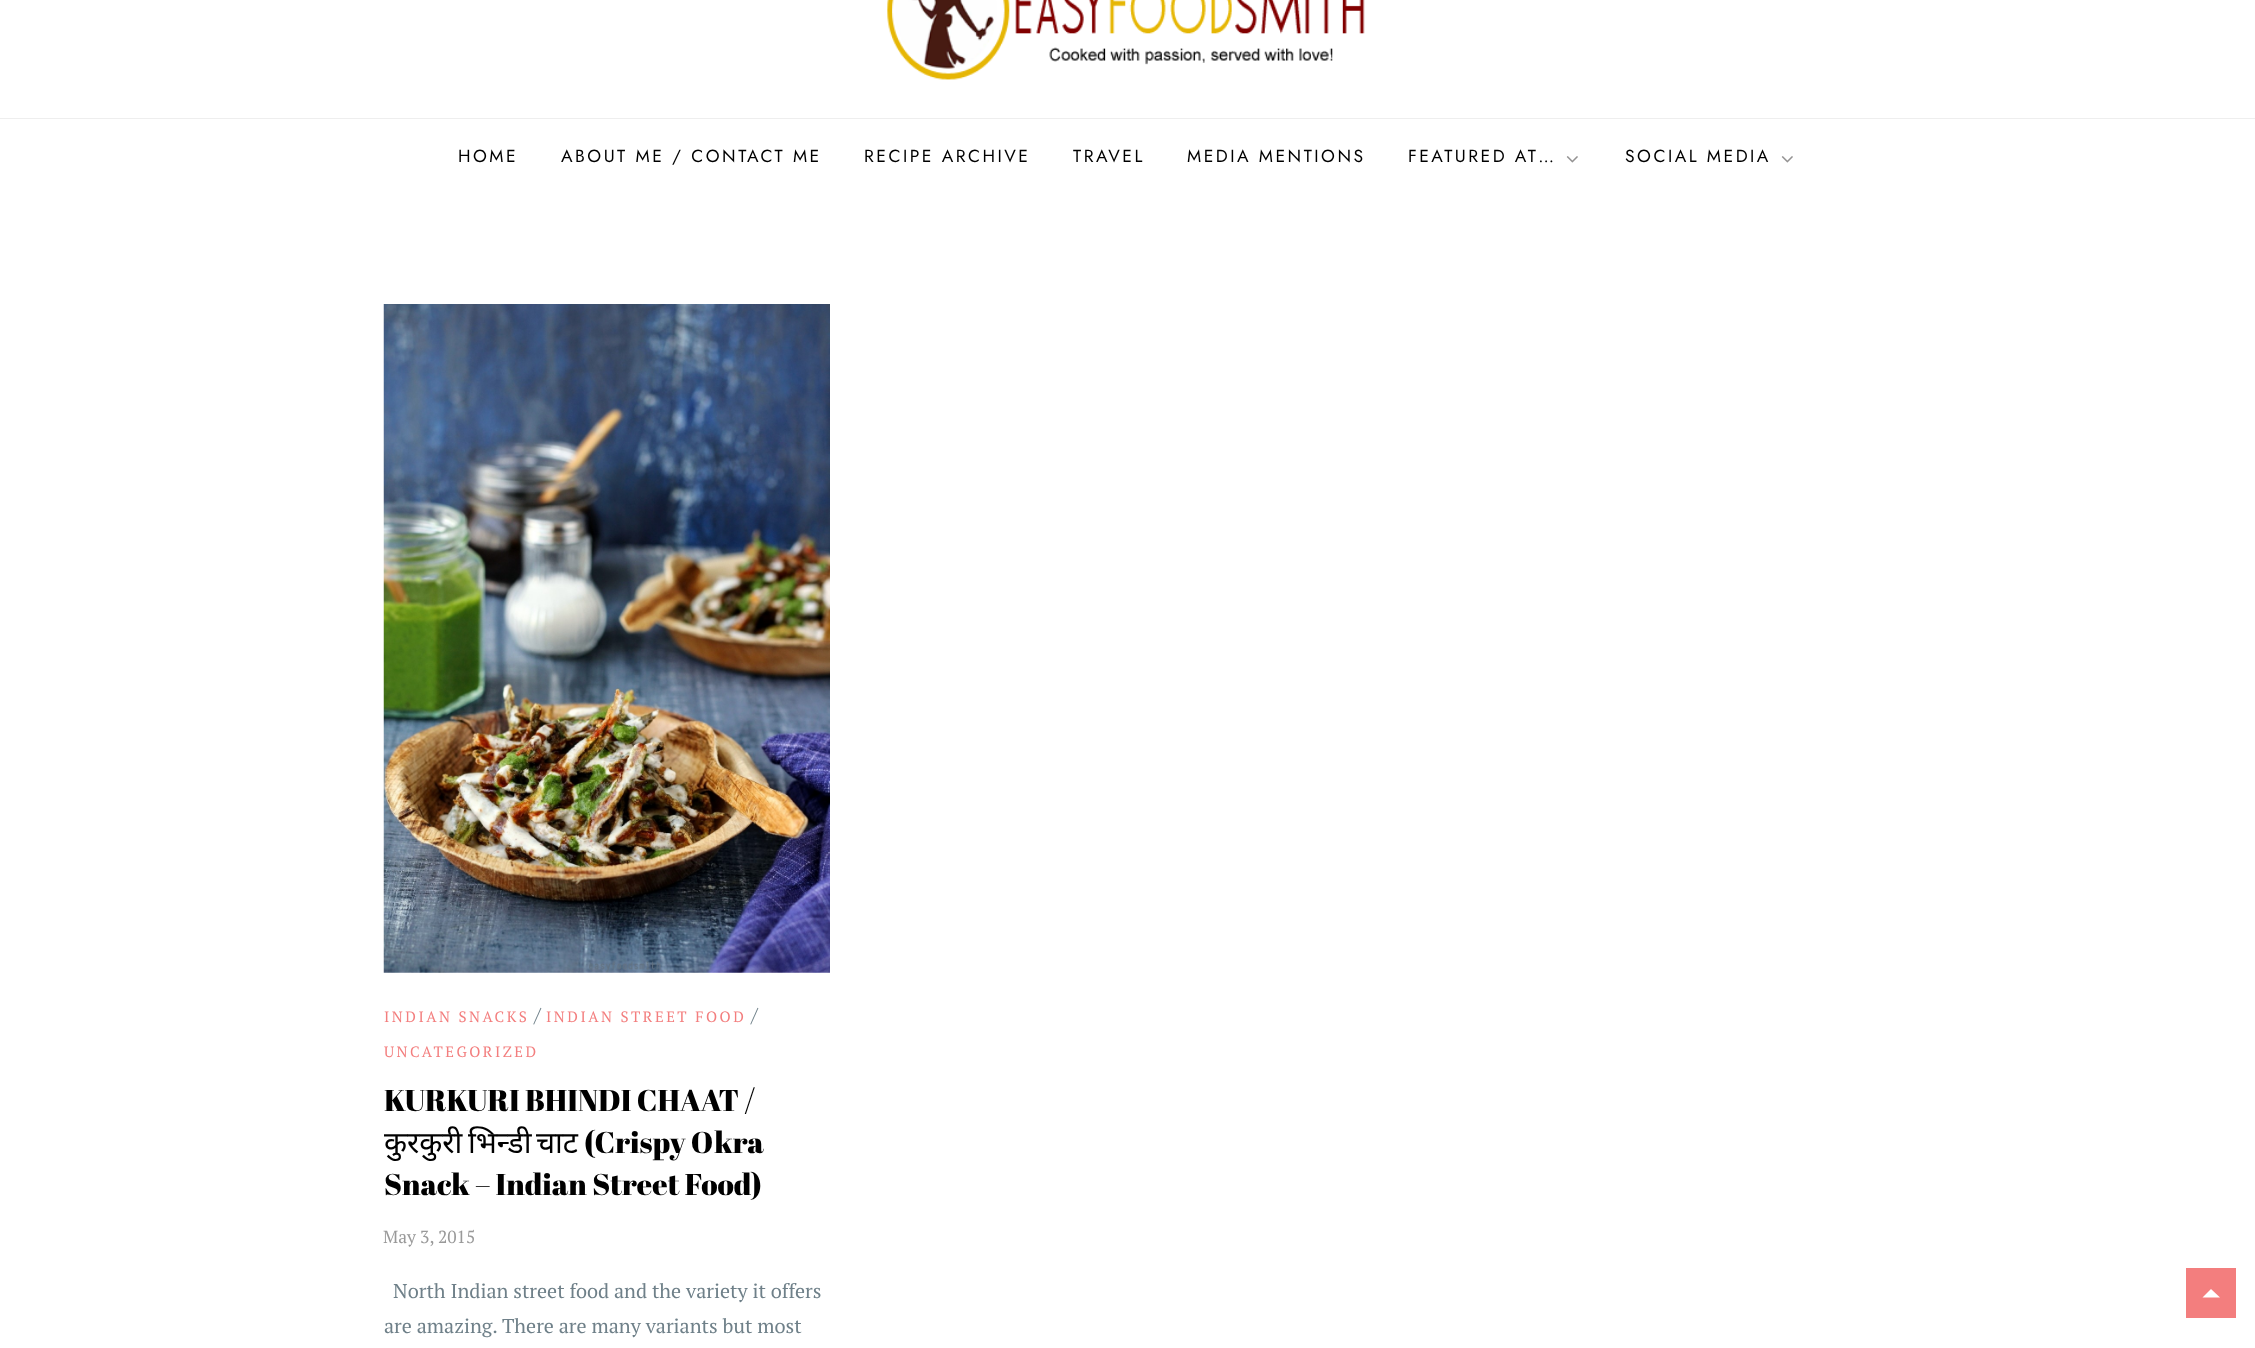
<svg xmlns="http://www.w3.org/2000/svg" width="2255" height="1348">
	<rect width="100%" height="100%" fill="#FFFFFF" />
	<image x="887" y="0" width="478" height="80" href="assets/img1.png" />
	<rect x="0" y="118" width="2255" height="1" fill="#EEEEEE" />
	<g font-family="Jost" font-size="17.5" letter-spacing="2.5" fill="#000000">
		<text x="458" y="162">HOME</text>
		<text x="561" y="162">ABOUT ME / CONTACT ME</text>
		<text x="864" y="162">RECIPE ARCHIVE</text>
		<text x="1073" y="162">TRAVEL</text>
		<text x="1187" y="162">MEDIA MENTIONS</text>
		<text x="1408" y="162">FEATURED AT…</text>
	</g>
	<image x="1566" y="156" width="12" height="7" href="assets/img2.png" />
	<text x="1625" y="162" font-family="Jost" font-size="17.5" letter-spacing="2.5" fill="#000000">SOCIAL MEDIA</text>
	<image x="1781" y="156" width="12" height="7" href="assets/img2.png" />
	<image x="383" y="304" width="447" height="669" href="assets/img3.png" />
	<text x="384" y="1022" font-family="PT Serif" font-size="15" letter-spacing="2.5" fill="#F37E7E">INDIAN SNACKS</text>
	<text x="534" y="1022" font-family="PT Serif" font-size="20" fill="#6F8089">/</text>
	<text x="546" y="1022" font-family="PT Serif" font-size="15" letter-spacing="2.5" fill="#F37E7E">INDIAN STREET FOOD</text>
	<text x="751" y="1022" font-family="PT Serif" font-size="20" fill="#6F8089">/</text>
	<text x="384" y="1057" font-family="PT Serif" font-size="15" letter-spacing="2.5" fill="#F37E7E">UNCATEGORIZED</text>
	<text x="384" y="1111" font-family="Abril Fatface" font-size="30" fill="#000000">KURKURI BHINDI CHAAT /</text>
	<g font-family="Noto Sans" font-size="30" fill="#000000">
		<text x="384" y="1153">कुरकुरी</text>
		<text x="468" y="1153">भिन्डी</text>
		<text x="536" y="1153">चाट</text>
	</g>
	<g font-family="Abril Fatface" font-size="30" fill="#000000">
		<text x="584" y="1153">(Crispy Okra</text>
		<text x="384" y="1195">Snack – Indian Street Food)</text>
	</g>
	<text x="383" y="1243" font-family="PT Serif" font-size="17.5" fill="#999999">May 3, 2015</text>
	<g font-family="PT Serif" font-size="20" fill="#6F8089">
		<text x="393" y="1298">North Indian street food and the variety it offers</text>
		<text x="384" y="1333">are amazing. There are many variants but most</text>
	</g>
	<rect x="2186" y="1268" width="50" height="50" fill="#F37E7E" />
	<path d="M2220 1297.5H2202.5L2211 1289Z" fill="#FFFFFF" />
</svg>
